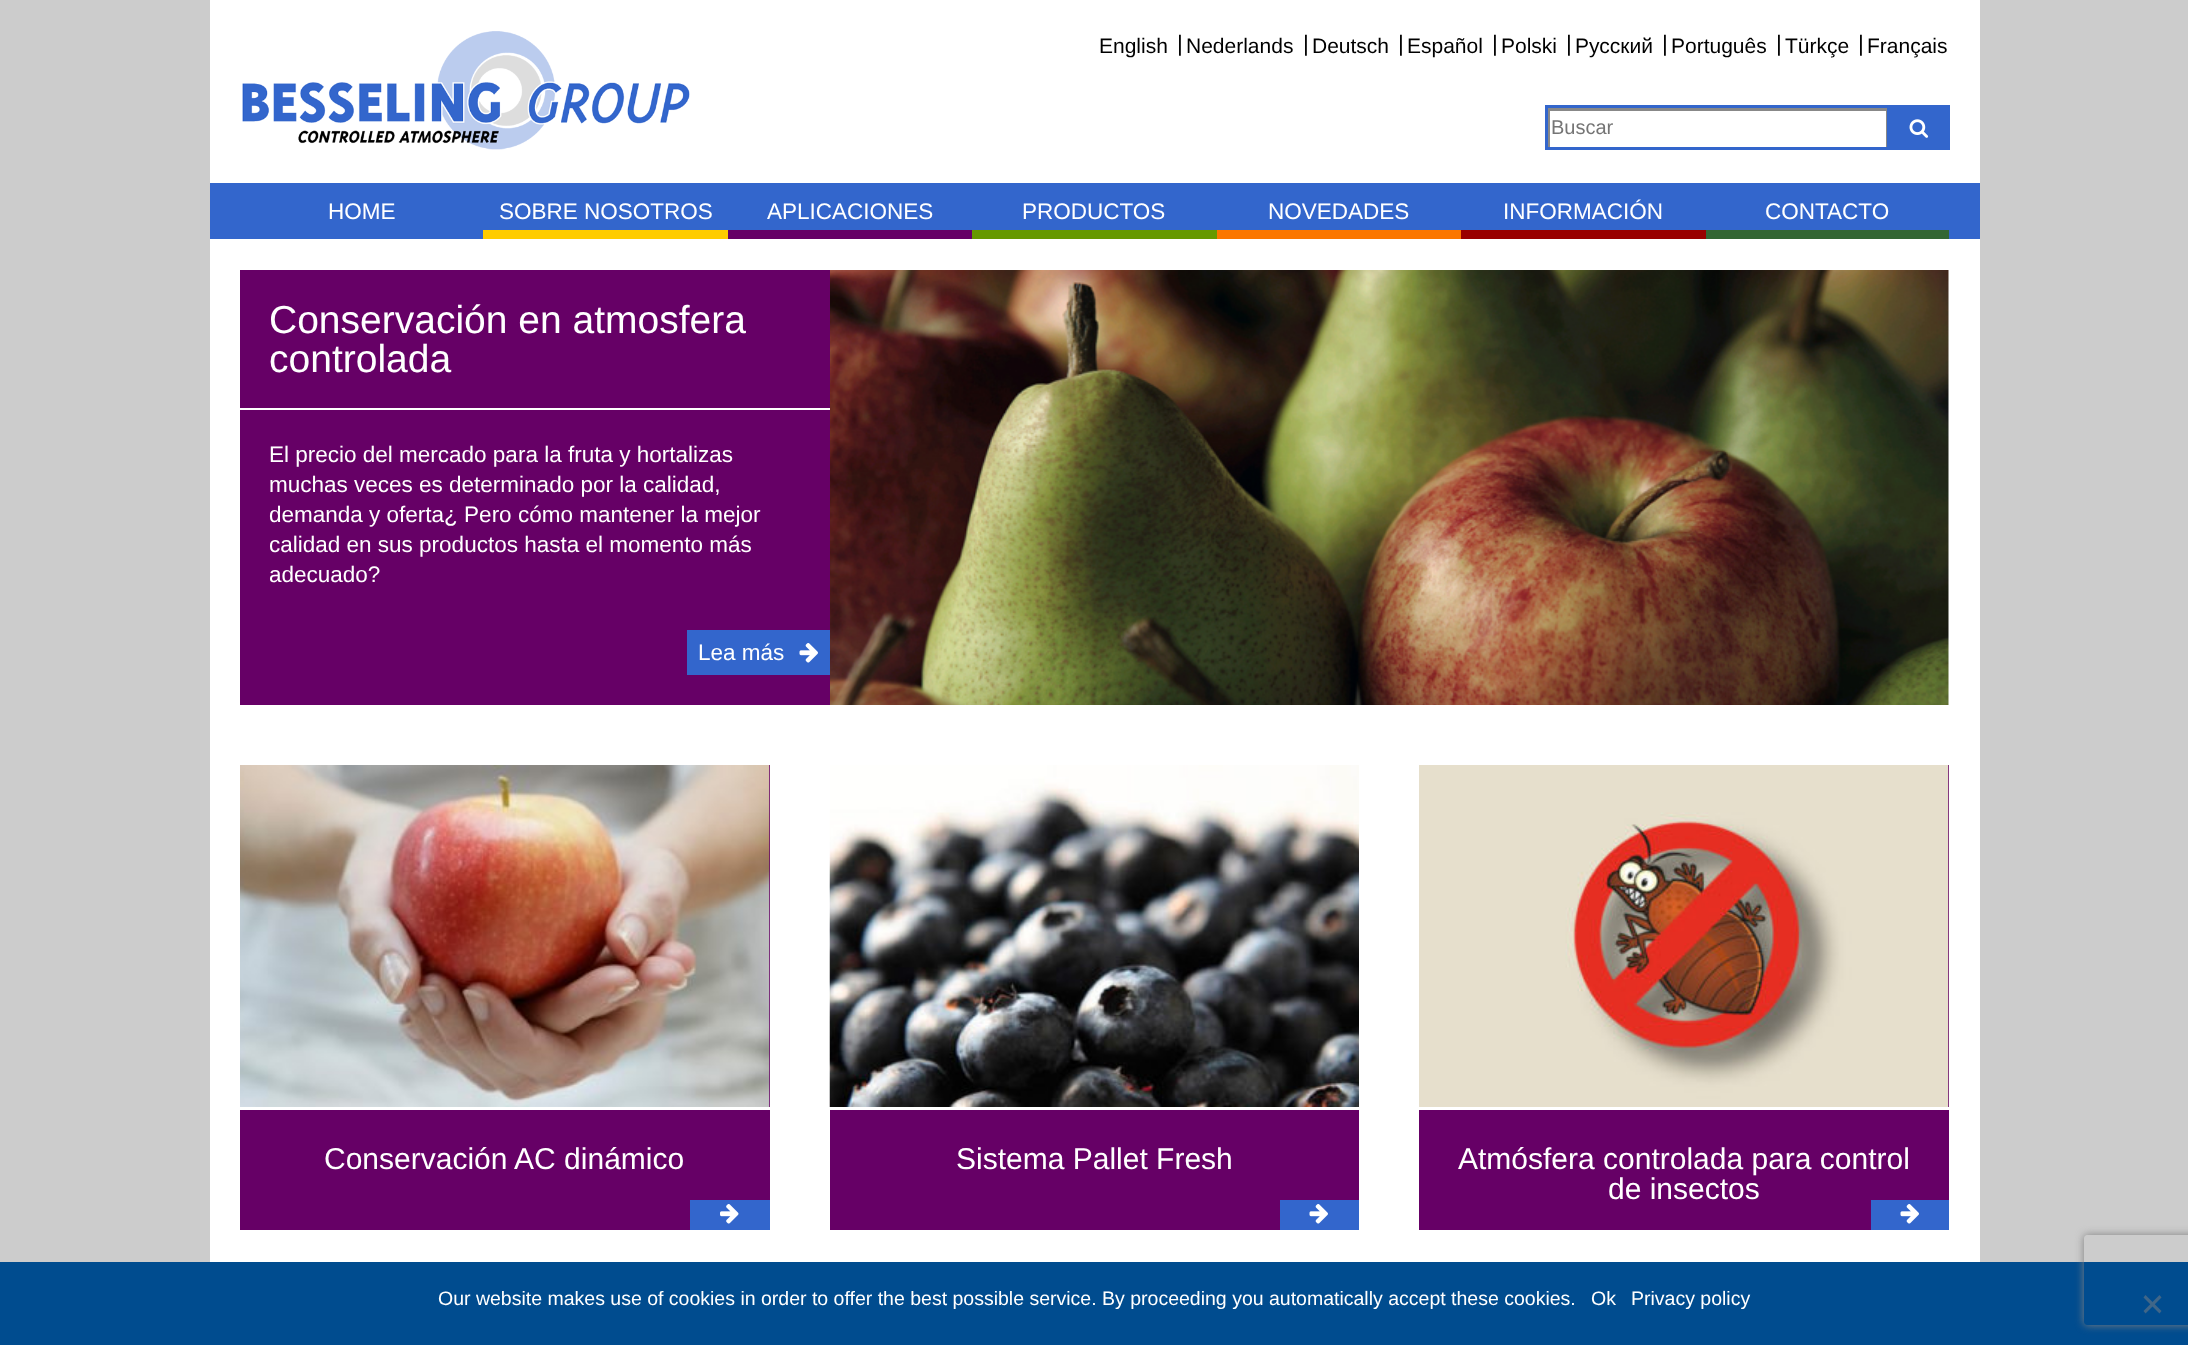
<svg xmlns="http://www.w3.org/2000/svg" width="2188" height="1345">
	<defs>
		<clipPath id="clip1"><rect x="1548" y="108" width="339" height="39" /></clipPath>
		<clipPath id="clip2"><path d="M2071 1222H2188V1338H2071ZM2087 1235H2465C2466.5 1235 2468 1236.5 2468 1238V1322C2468 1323.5 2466.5 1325 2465 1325H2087C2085.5 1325 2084 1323.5 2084 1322V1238C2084 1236.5 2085.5 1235 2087 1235Z" clip-rule="evenodd" /></clipPath>
	</defs>
	<rect width="100%" height="100%" fill="#CCCCCC" />
	<rect x="210" y="0" width="1770" height="1262" fill="#FFFFFF" />
	<image x="242" y="31" width="448" height="119" href="assets/img1.png" />
	<text x="1099" y="53" font-family="Liberation Sans" font-size="21" fill="#000000">English</text>
	<text x="1177" y="51" font-family="Liberation Sans" font-size="22.5" fill="#000000">|</text>
	<text x="1186" y="53" font-family="Liberation Sans" font-size="21" fill="#000000">Nederlands</text>
	<text x="1303" y="51" font-family="Liberation Sans" font-size="22.5" fill="#000000">|</text>
	<text x="1312" y="53" font-family="Liberation Sans" font-size="21" fill="#000000">Deutsch</text>
	<text x="1398" y="51" font-family="Liberation Sans" font-size="22.5" fill="#000000">|</text>
	<text x="1407" y="53" font-family="Liberation Sans" font-size="21" fill="#000000">Español</text>
	<text x="1492" y="51" font-family="Liberation Sans" font-size="22.5" fill="#000000">|</text>
	<text x="1501" y="53" font-family="Liberation Sans" font-size="21" fill="#000000">Polski</text>
	<text x="1566" y="51" font-family="Liberation Sans" font-size="22.5" fill="#000000">|</text>
	<text x="1575" y="53" font-family="Liberation Sans" font-size="21" fill="#000000">Русский</text>
	<text x="1662" y="51" font-family="Liberation Sans" font-size="22.5" fill="#000000">|</text>
	<text x="1671" y="53" font-family="Liberation Sans" font-size="21" fill="#000000">Português</text>
	<text x="1776" y="51" font-family="Liberation Sans" font-size="22.5" fill="#000000">|</text>
	<text x="1785" y="53" font-family="Liberation Sans" font-size="21" fill="#000000">Türkçe</text>
	<text x="1858" y="51" font-family="Liberation Sans" font-size="22.5" fill="#000000">|</text>
	<text x="1867" y="53" font-family="Liberation Sans" font-size="21" fill="#000000">Français</text>
	<g clip-path="url(#clip1)">
		<path d="M1400-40H2036V296H1400ZM1550 111H1886V147H1550Z" fill="#888888" fill-rule="evenodd" />
	</g>
	<rect x="1546.5" y="106.5" width="342" height="42" fill="none" stroke="#3366CC" stroke-width="3" />
	<text x="1551" y="134" font-family="Liberation Sans" font-size="20" fill="#757575">Buscar</text>
	<rect x="1890" y="105" width="60" height="45" fill="#3366CC" />
	<image x="1909" y="119" width="20" height="19" href="assets/img2.png" />
	<rect x="210" y="183" width="1770" height="56" fill="#3366CC" />
	<text x="328" y="219" font-family="Liberation Sans" font-size="22.5" fill="#FFFFFF">HOME</text>
	<rect x="483" y="230" width="245" height="9" fill="#FFCC00" />
	<text x="499" y="219" font-family="Liberation Sans" font-size="22.5" fill="#FFFFFF">SOBRE NOSOTROS</text>
	<rect x="728" y="230" width="244" height="9" fill="#660066" />
	<text x="767" y="219" font-family="Liberation Sans" font-size="22.5" fill="#FFFFFF">APLICACIONES</text>
	<rect x="972" y="230" width="245" height="9" fill="#669900" />
	<text x="1022" y="219" font-family="Liberation Sans" font-size="22.5" fill="#FFFFFF">PRODUCTOS</text>
	<rect x="1217" y="230" width="244" height="9" fill="#FB7700" />
	<text x="1268" y="219" font-family="Liberation Sans" font-size="22.5" fill="#FFFFFF">NOVEDADES</text>
	<rect x="1461" y="230" width="245" height="9" fill="#990000" />
	<text x="1503" y="219" font-family="Liberation Sans" font-size="22.5" fill="#FFFFFF">INFORMACIÓN</text>
	<rect x="1706" y="230" width="243" height="9" fill="#336633" />
	<text x="1765" y="219" font-family="Liberation Sans" font-size="22.5" fill="#FFFFFF">CONTACTO</text>
	<rect x="240" y="270" width="590" height="435" fill="#660066" />
	<rect x="240" y="408" width="590" height="2" fill="#FFFFFF" />
	<g font-family="Liberation Sans" font-size="39" fill="#FFFFFF">
		<text x="269" y="333">Conservación en atmosfera</text>
		<text x="269" y="372">controlada</text>
	</g>
	<g font-family="Liberation Sans" font-size="22.5" fill="#FFFFFF">
		<text x="269" y="462">El precio del mercado para la fruta y hortalizas</text>
		<text x="269" y="492">muchas veces es determinado por la calidad,</text>
		<text x="269" y="522">demanda y oferta¿ Pero cómo mantener la mejor</text>
		<text x="269" y="552">calidad en sus productos hasta el momento más</text>
		<text x="269" y="582">adecuado?</text>
	</g>
	<rect x="687" y="630" width="143" height="45" fill="#3366CC" />
	<text x="698" y="660" font-family="Liberation Sans" font-size="22.5" fill="#FFFFFF">Lea más</text>
	<image x="799" y="643" width="19" height="20" href="assets/img3.png" />
	<image x="830" y="270" width="1119" height="435" href="assets/img4.png" />
	<rect x="240" y="765" width="530" height="465" fill="#660066" />
	<image x="240" y="765" width="530" height="342" href="assets/img5.png" />
	<rect x="240" y="1107" width="530" height="3" fill="#FFFFFF" />
	<text x="324" y="1169" font-family="Liberation Sans" font-size="30" fill="#FFFFFF">Conservación AC dinámico</text>
	<rect x="690" y="1200" width="80" height="30" fill="#3366CC" />
	<image x="720" y="1204" width="19" height="20" href="assets/img6.png" />
	<rect x="830" y="1110" width="529" height="120" fill="#660066" />
	<image x="829" y="765" width="530" height="342" href="assets/img7.png" />
	<text x="956" y="1169" font-family="Liberation Sans" font-size="30" fill="#FFFFFF">Sistema Pallet Fresh</text>
	<rect x="1280" y="1200" width="79" height="30" fill="#3366CC" />
	<image x="1309" y="1204" width="19" height="20" href="assets/img3.png" />
	<rect x="1419" y="765" width="530" height="465" fill="#660066" />
	<image x="1419" y="765" width="530" height="342" href="assets/img8.png" />
	<rect x="1419" y="1107" width="530" height="3" fill="#FFFFFF" />
	<g font-family="Liberation Sans" font-size="30" fill="#FFFFFF">
		<text x="1458" y="1169">Atmósfera controlada para control</text>
		<text x="1608" y="1199">de insectos</text>
	</g>
	<rect x="1871" y="1200" width="78" height="30" fill="#3366CC" />
	<image x="1900" y="1204" width="19" height="20" href="assets/img3.png" />
	<rect x="0" y="1262" width="2188" height="83" fill="#004C8F" />
	<g font-family="Liberation Sans" font-size="19.5" fill="#FFFFFF">
		<text x="438" y="1305">Our website makes use of cookies in order to offer the best possible service. By proceeding you automatically accept these cookies.</text>
		<text x="1591" y="1305">Ok</text>
		<text x="1631" y="1305">Privacy policy</text>
	</g>
	<path d="M2159.5 1295L2161.5 1297.5L2145.5 1313.5L2143.5 1311Z" fill="#406688" />
	<path d="M2143.5 1297.5L2145.5 1295L2161.5 1311L2159.5 1313.5Z" fill="#406688" />
	<g clip-path="url(#clip2)">
		<rect x="2084" y="1235" width="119" height="90" rx="3" fill="#808080" filter="blur(4px)" />
	</g>
</svg>
